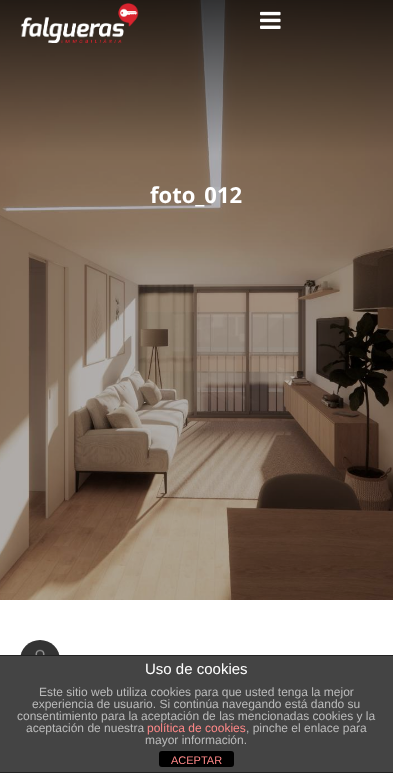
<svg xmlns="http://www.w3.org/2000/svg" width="393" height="773">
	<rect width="100%" height="100%" fill="#FFFFFF" />
	<image x="0" y="0" width="393" height="600" href="assets/img3.png" />
	<image x="20" y="3" width="119" height="40" href="assets/img1.png" />
	<image x="260" y="11" width="21" height="18" href="assets/img2.png" />
	<text x="150" y="203" font-family="Open Sans" font-size="22" font-weight="700" fill="#FFFFFF">foto_012</text>
	<image x="20" y="640" width="40" height="15" href="assets/img4.png" />
	<rect x="0" y="656" width="393" height="116" fill="#444444" />
	<rect x="0" y="655" width="393" height="1" fill="#222222" />
	<rect x="0" y="772" width="393" height="1" fill="#222222" />
	<text x="145" y="674" font-family="Liberation Sans" font-size="15" fill="#FFFFFF">Uso de cookies</text>
	<g font-family="Liberation Sans" font-size="12" fill="#BBBBBB">
		<text x="39" y="696">Este sitio web utiliza cookies para que usted tenga la mejor</text>
		<text x="32" y="708">experiencia de usuario. Si continúa navegando está dando su</text>
		<text x="17" y="720">consentimiento para la aceptación de las mencionadas cookies y la</text>
		<text x="26" y="732">aceptación de nuestra</text>
	</g>
	<text x="147" y="732" font-family="Liberation Sans" font-size="12" fill="#FF8888">política de cookies</text>
	<g font-family="Liberation Sans" font-size="12" fill="#BBBBBB">
		<text x="246" y="732">, pinche el enlace para</text>
		<text x="145" y="744">mayor información.</text>
	</g>
	<rect x="159" y="751" width="75" height="16" rx="3" fill="#000000" />
	<text x="171" y="764" font-family="Liberation Sans" font-size="11" fill="#FF8888">ACEPTAR</text>
</svg>
